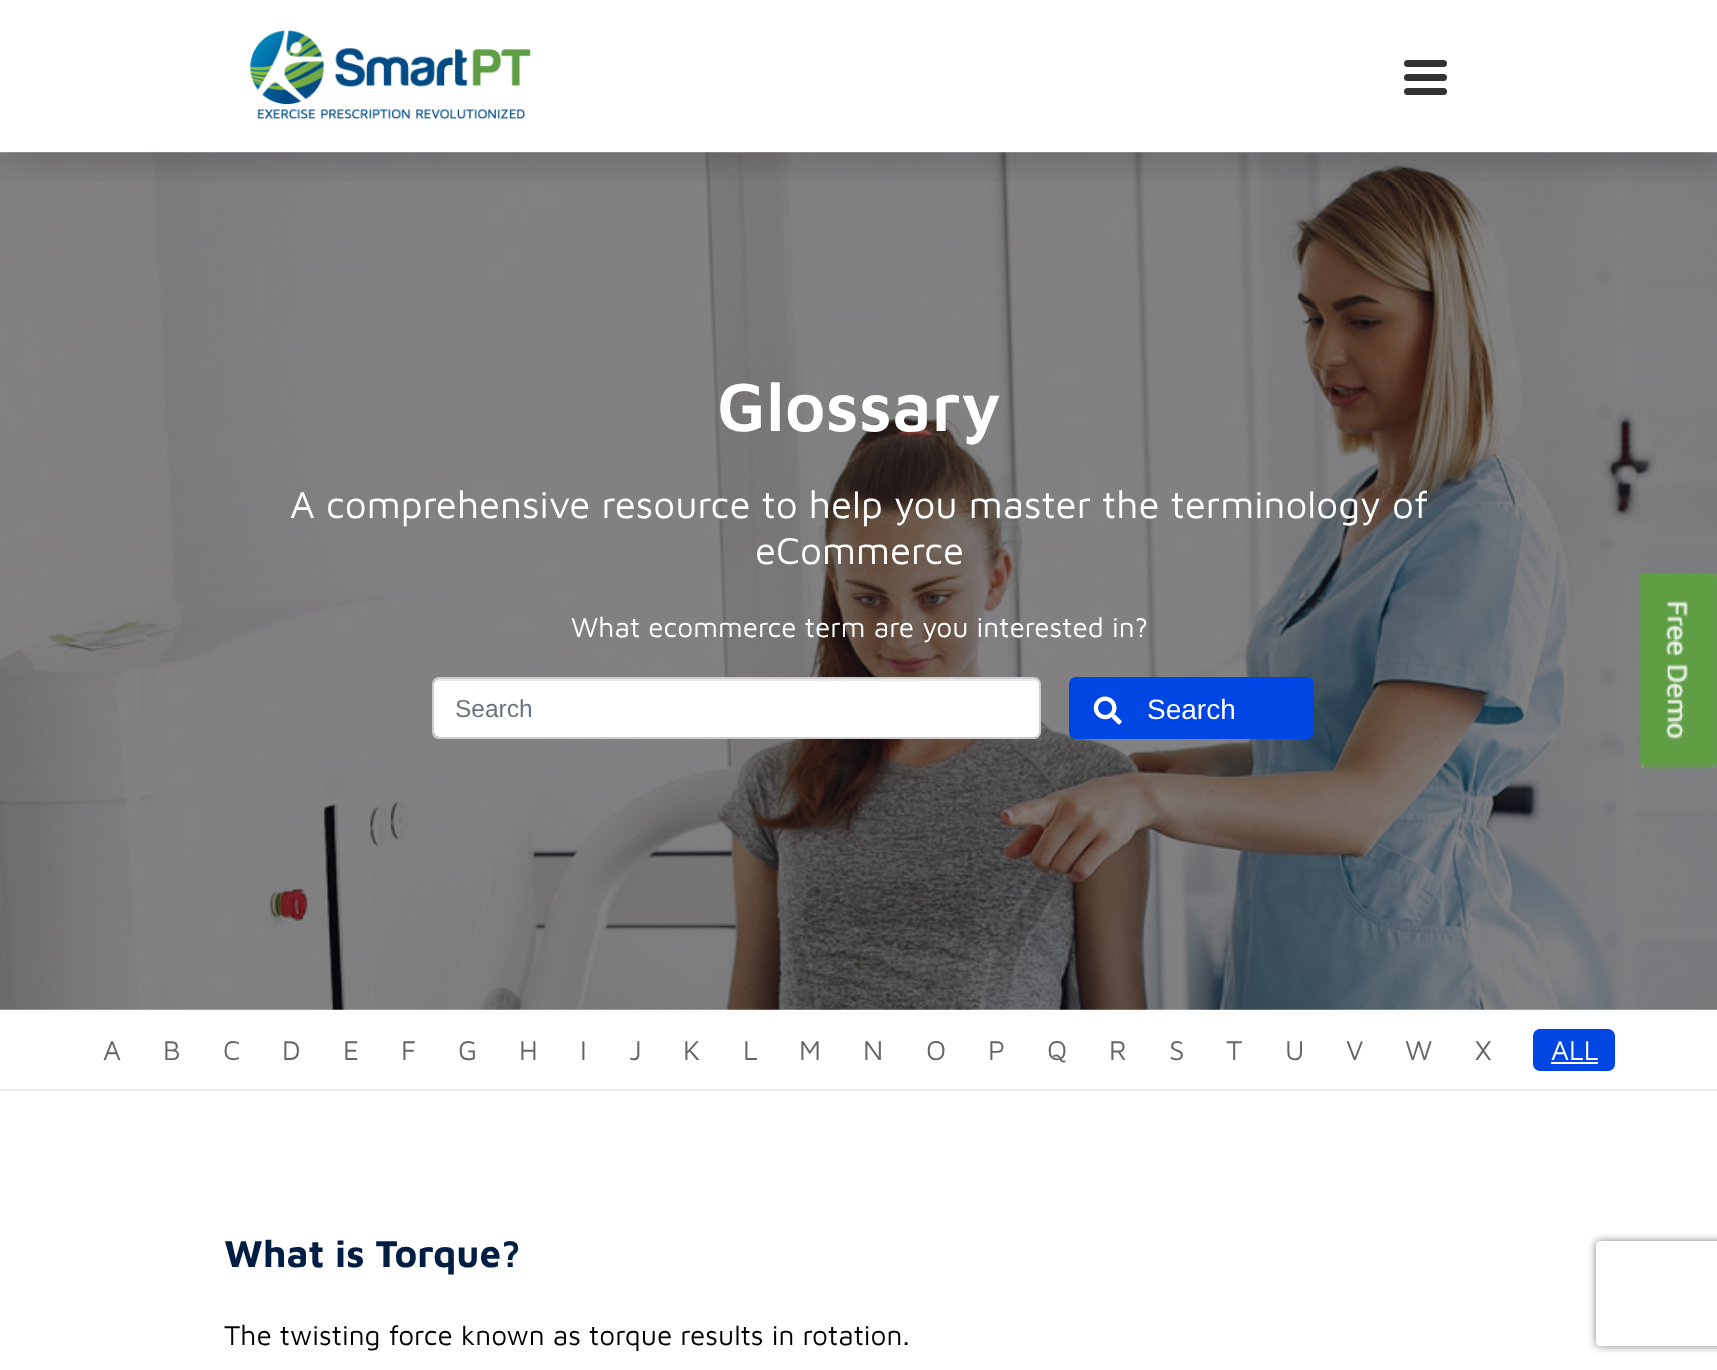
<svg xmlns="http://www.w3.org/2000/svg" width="1717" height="1370">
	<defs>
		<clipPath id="clip1"><rect x="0" y="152" width="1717" height="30" /></clipPath>
		<clipPath id="clip2"><path d="M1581 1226H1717V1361H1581ZM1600 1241H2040C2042 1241 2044 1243 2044 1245V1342C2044 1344 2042 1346 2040 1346H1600C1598 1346 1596 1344 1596 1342V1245C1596 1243 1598 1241 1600 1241Z" clip-rule="evenodd" /></clipPath>
	</defs>
	<rect width="100%" height="100%" fill="#FFFFFF" />
	<image x="0" y="152" width="1717" height="858" href="assets/img2.png" />
	<g clip-path="url(#clip1)">
		<rect x="0" y="14" width="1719" height="152" fill="#000000" fill-opacity="0.15" filter="blur(14px)" />
	</g>
	<image x="250" y="30" width="281" height="89" href="assets/img1.png" />
	<rect x="1404" y="60" width="43" height="7" rx="3.5" fill="#333333" />
	<rect x="1404" y="74" width="43" height="7" rx="3.5" fill="#333333" />
	<rect x="1404" y="88" width="43" height="7" rx="3.5" fill="#333333" />
	<text x="717" y="431" font-family="Maven Pro" font-size="70" font-weight="600" fill="#FFFFFF">Glossary</text>
	<g font-family="Maven Pro" font-size="38.5" fill="#FFFFFF">
		<text x="290" y="518">A comprehensive resource to help you master the terminology of</text>
		<text x="755" y="564">eCommerce</text>
	</g>
	<text x="571" y="637" font-family="Maven Pro" font-size="28" fill="#FFFFFF">What ecommerce term are you interested in?</text>
	<rect x="434" y="679" width="606" height="58" rx="5" fill="#FFFFFF" />
	<path d="M439 681H1034C1037 681 1040 683 1040 686C1040 683 1039 679 1035 679H439C435 679 434 683 434 686C434 683 436 681 439 681Z" fill="#000000" fill-opacity="0.08" />
	<rect x="433" y="678" width="607" height="60" rx="6" fill="none" stroke="#CCCCCC" stroke-width="2" />
	<text x="455" y="717" font-family="Liberation Sans" font-size="24.5" fill="#6C757D">Search</text>
	<rect x="1070" y="678" width="243" height="60" rx="6" fill="#0046E4" stroke="#0046E4" stroke-width="2" />
	<image x="1093" y="696" width="29" height="29" href="assets/img3.png" />
	<text x="1147" y="719" font-family="Liberation Sans" font-size="28" fill="#FFFFFF">Search</text>
	<image x="1640" y="574" width="77" height="195" href="assets/img4.png" />
	<rect x="0" y="1089" width="1717" height="2" fill="#E0E7EF" />
	<g font-family="Maven Pro" font-size="28" fill="#666666">
		<text x="103" y="1060">A</text>
		<text x="163" y="1060">B</text>
		<text x="223" y="1060">C</text>
		<text x="282" y="1060">D</text>
		<text x="343" y="1060">E</text>
		<text x="401" y="1060">F</text>
		<text x="458" y="1060">G</text>
		<text x="519" y="1060">H</text>
		<text x="580" y="1060">I</text>
		<text x="629" y="1060">J</text>
		<text x="683" y="1060">K</text>
		<text x="743" y="1060">L</text>
		<text x="799" y="1060">M</text>
		<text x="863" y="1060">N</text>
		<text x="926" y="1060">O</text>
		<text x="988" y="1060">P</text>
		<text x="1047" y="1060">Q</text>
		<text x="1109" y="1060">R</text>
		<text x="1169" y="1060">S</text>
		<text x="1226" y="1060">T</text>
		<text x="1285" y="1060">U</text>
		<text x="1346" y="1060">V</text>
		<text x="1405" y="1060">W</text>
		<text x="1475" y="1060">X</text>
	</g>
	<rect x="1533" y="1029" width="82" height="42" rx="7" fill="#0046E4" />
	<text x="1551" y="1060" font-family="Maven Pro" font-size="28" fill="#FFFFFF">ALL</text>
	<rect x="1551" y="1062" width="47" height="2" fill="#FFFFFF" />
	<text x="224" y="1267" font-family="Maven Pro" font-size="38.5" font-weight="700" fill="#001D43">What is Torque?</text>
	<text x="224" y="1345" font-family="Maven Pro" font-size="28" fill="#000000">The twisting force known as torque results in rotation.</text>
	<g clip-path="url(#clip2)">
		<rect x="1596" y="1241" width="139" height="105" rx="4" fill="#808080" filter="blur(4.5px)" />
	</g>
</svg>
